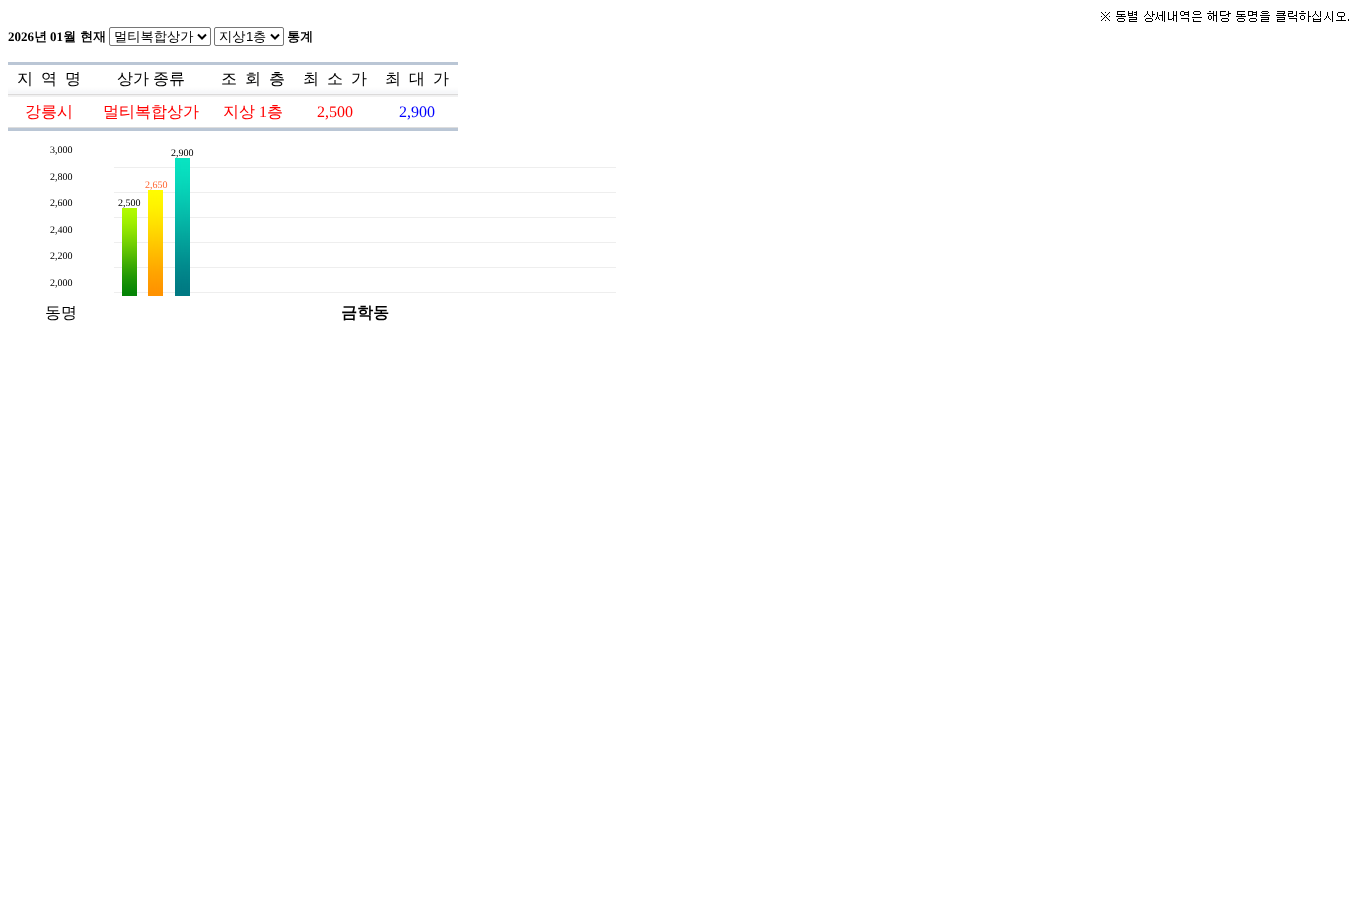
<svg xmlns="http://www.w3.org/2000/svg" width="1360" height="898">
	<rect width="100%" height="100%" fill="#FFFFFF" />
	<image x="1101" y="11" width="248" height="11" href="assets/img1.png" />
	<text x="8" y="41" font-family="Liberation Serif" font-size="13" font-weight="700" fill="#000000">2026</text>
	<text x="34" y="41" font-family="WenQuanYi Zen Hei" font-size="13" font-weight="700" fill="#000000">년</text>
	<text x="50" y="41" font-family="Liberation Serif" font-size="13" font-weight="700" fill="#000000">01</text>
	<text x="63" y="41" font-family="WenQuanYi Zen Hei" font-size="13" font-weight="700" fill="#000000">월 현재</text>
	<rect x="109.5" y="27.5" width="101" height="18" rx="1.5" fill="none" stroke="#767676" />
	<path d="M198 34.5L202 38.5L206 34.5" fill="none" stroke="#000000" stroke-width="2" />
	<text x="114" y="41" font-family="WenQuanYi Zen Hei" font-size="13.25" font-weight="500" fill="#000000">멀티복합상가</text>
	<rect x="214.5" y="27.5" width="69" height="18" rx="1.5" fill="none" stroke="#767676" />
	<path d="M271 34.5L275 38.5L279 34.5" fill="none" stroke="#000000" stroke-width="2" />
	<text x="219" y="41" font-family="WenQuanYi Zen Hei" font-size="13.25" font-weight="500" fill="#000000">지상</text>
	<text x="246" y="41" font-family="Liberation Sans" font-size="13.25" fill="#000000">1</text>
	<text x="253" y="41" font-family="WenQuanYi Zen Hei" font-size="13.25" font-weight="500" fill="#000000">층</text>
	<text x="287" y="41" font-family="WenQuanYi Zen Hei" font-size="13" font-weight="700" fill="#000000">통계</text>
	<image x="8" y="62" width="82" height="35" href="assets/img2.png" />
	<g font-family="WenQuanYi Zen Hei" font-size="16" font-weight="500" fill="#000000">
		<text x="17" y="84">지</text>
		<text x="41" y="84">역</text>
		<text x="65" y="84">명</text>
	</g>
	<image x="90" y="62" width="123" height="35" href="assets/img3.png" />
	<g font-family="WenQuanYi Zen Hei" font-size="16" font-weight="500" fill="#000000">
		<text x="117" y="84">상가</text>
		<text x="153" y="84">종류</text>
	</g>
	<image x="213" y="62" width="81" height="35" href="assets/img4.png" />
	<g font-family="WenQuanYi Zen Hei" font-size="16" font-weight="500" fill="#000000">
		<text x="221" y="84">조</text>
		<text x="245" y="84">회</text>
		<text x="269" y="84">층</text>
	</g>
	<image x="294" y="62" width="82" height="35" href="assets/img2.png" />
	<g font-family="WenQuanYi Zen Hei" font-size="16" font-weight="500" fill="#000000">
		<text x="303" y="84">최</text>
		<text x="327" y="84">소</text>
		<text x="351" y="84">가</text>
	</g>
	<image x="376" y="62" width="82" height="35" href="assets/img2.png" />
	<g font-family="WenQuanYi Zen Hei" font-size="16" font-weight="500" fill="#000000">
		<text x="385" y="84">최</text>
		<text x="409" y="84">대</text>
		<text x="433" y="84">가</text>
	</g>
	<g font-family="WenQuanYi Zen Hei" font-size="16" font-weight="500" fill="#FF0000">
		<text x="25" y="117">강릉시</text>
		<text x="103" y="117">멀티복합상가</text>
		<text x="223" y="117">지상</text>
	</g>
	<text x="259" y="117" font-family="Liberation Serif" font-size="16" fill="#FF0000">1</text>
	<text x="267" y="117" font-family="WenQuanYi Zen Hei" font-size="16" font-weight="500" fill="#FF0000">층</text>
	<text x="317" y="117" font-family="Liberation Serif" font-size="16" fill="#FF0000">2,500</text>
	<text x="399" y="117" font-family="Liberation Serif" font-size="16" fill="#0000FF">2,900</text>
	<rect x="8" y="127" width="450" height="1" fill="#DDDDDD" />
	<rect x="8" y="128" width="450" height="3" fill="#BAC6D5" />
	<text x="50" y="153" font-family="Liberation Serif" font-size="10" fill="#000000">3,000</text>
	<image x="114" y="167" width="502" height="126" href="assets/img5.png" />
	<text x="171" y="156" font-family="Liberation Serif" font-size="10" fill="#000000">2,900</text>
	<image x="175" y="158" width="15" height="138" href="assets/img6.png" />
	<text x="145" y="188" font-family="Liberation Serif" font-size="10" fill="#FF6633">2,650</text>
	<image x="148" y="190" width="15" height="106" href="assets/img7.png" />
	<text x="118" y="206" font-family="Liberation Serif" font-size="10" fill="#000000">2,500</text>
	<image x="122" y="208" width="15" height="88" href="assets/img8.png" />
	<g font-family="Liberation Serif" font-size="10" fill="#000000">
		<text x="50" y="180">2,800</text>
		<text x="50" y="206">2,600</text>
		<text x="50" y="233">2,400</text>
		<text x="50" y="259">2,200</text>
		<text x="50" y="286">2,000</text>
	</g>
	<text x="45" y="318" font-family="WenQuanYi Zen Hei" font-size="16" font-weight="500" fill="#000000">동명</text>
	<text x="341" y="318" font-family="WenQuanYi Zen Hei" font-size="16" font-weight="700" fill="#000000">금학동</text>
</svg>
